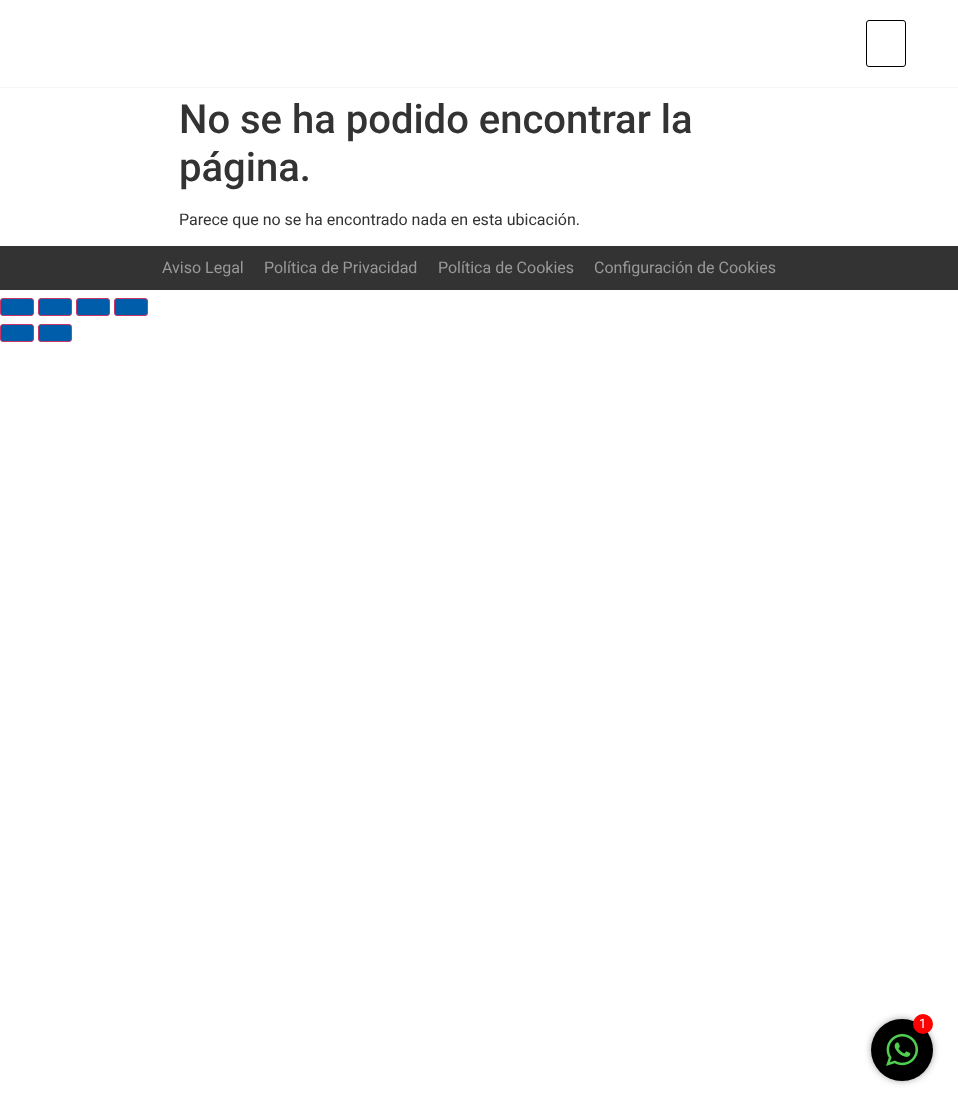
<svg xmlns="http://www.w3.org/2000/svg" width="958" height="1101">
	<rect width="100%" height="100%" fill="#FFFFFF" />
	<rect x="0" y="87" width="958" height="1" fill="#F6F6F6" />
	<rect x="866.5" y="20.5" width="39" height="46" rx="2.5" fill="none" stroke="#000000" />
	<g font-family="Roboto" font-size="40" font-weight="500" fill="#333333">
		<text x="179" y="133">No se ha podido encontrar la</text>
		<text x="179" y="181">página.</text>
	</g>
	<text x="179" y="225" font-family="Roboto" font-size="16" fill="#333333">Parece que no se ha encontrado nada en esta ubicación.</text>
	<rect x="0" y="246" width="958" height="44" fill="#333333" />
	<g font-family="Roboto" font-size="16" fill="#999999">
		<text x="162" y="273">Aviso Legal</text>
		<text x="264" y="273">Política de Privacidad</text>
		<text x="438" y="273">Política de Cookies</text>
		<text x="594" y="273">Configuración de Cookies</text>
	</g>
	<rect x="0.5" y="298.5" width="33" height="17" rx="2.5" fill="#005DA9" stroke="#CC3366" />
	<rect x="38.5" y="298.5" width="33" height="17" rx="2.5" fill="#005DA9" stroke="#CC3366" />
	<rect x="76.5" y="298.5" width="33" height="17" rx="2.5" fill="#005DA9" stroke="#CC3366" />
	<rect x="114.5" y="298.5" width="33" height="17" rx="2.5" fill="#005DA9" stroke="#CC3366" />
	<rect x="0.5" y="324.5" width="33" height="17" rx="2.5" fill="#005DA9" stroke="#CC3366" />
	<rect x="38.5" y="324.5" width="33" height="17" rx="2.5" fill="#005DA9" stroke="#CC3366" />
	<rect x="874" y="1022" width="56" height="56" rx="28" fill="#333333" filter="blur(5px)" />
	<circle cx="902" cy="1050" r="31" fill="#000000" />
	<circle cx="923" cy="1024" r="10" fill="#FF0000" />
	<text x="919" y="1028" font-family="Roboto" font-size="13" fill="#FFFFFF">1</text>
	<image x="886" y="1034" width="32" height="32" href="assets/img1.png" />
</svg>
